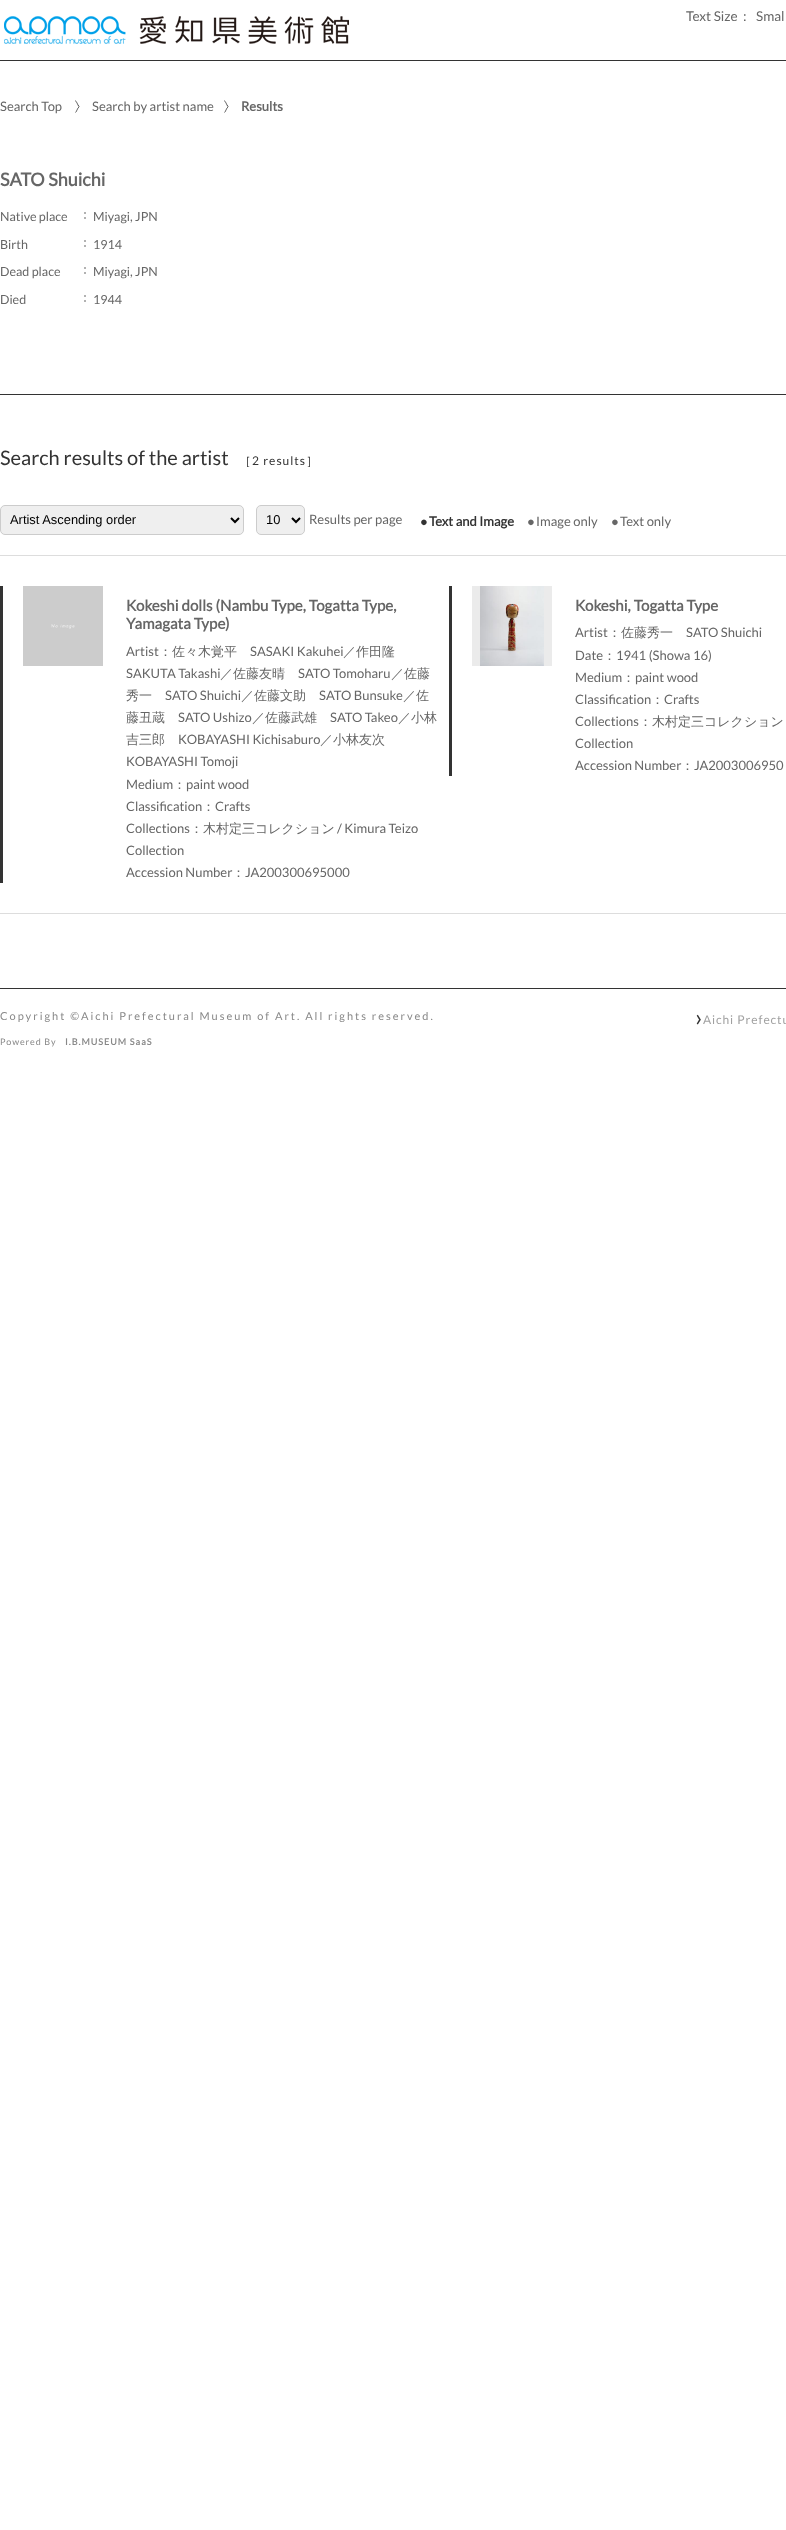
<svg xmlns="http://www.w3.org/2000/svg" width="786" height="2530">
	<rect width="100%" height="100%" fill="#FFFFFF" />
	<image x="4" y="16" width="345" height="28" href="assets/img1.png" />
	<text x="686" y="21" font-family="Lato" font-size="13.5" fill="#666666">Text Size</text>
	<text x="738" y="21" font-family="WenQuanYi Zen Hei" font-size="13.5" font-weight="500" fill="#666666">：</text>
	<text x="756" y="21" font-family="Lato" font-size="13.5" fill="#666666">Smal</text>
	<rect x="0" y="60" width="786" height="1" fill="#333333" />
	<rect x="0" y="988" width="786" height="1" fill="#333333" />
	<text x="0" y="111" font-family="Lato" font-size="13" fill="#666666">Search Top</text>
	<image x="75" y="100" width="5" height="13" href="assets/img2.png" />
	<text x="92" y="111" font-family="Lato" font-size="13" fill="#666666">Search by artist name</text>
	<image x="224" y="100" width="5" height="13" href="assets/img2.png" />
	<text x="241" y="111" font-family="Lato" font-size="13" font-weight="700" fill="#666666">Results</text>
	<text x="0" y="186" font-family="Lato" font-size="18" font-weight="700" fill="#666666">SATO Shuichi</text>
	<text x="0" y="221" font-family="Lato" font-size="12.5" fill="#666666">Native place</text>
	<image x="84" y="212" width="2" height="7" href="assets/img3.png" />
	<g font-family="Lato" font-size="12.5" fill="#666666">
		<text x="93" y="221">Miyagi, JPN</text>
		<text x="0" y="249">Birth</text>
	</g>
	<image x="84" y="240" width="2" height="7" href="assets/img3.png" />
	<g font-family="Lato" font-size="12.5" fill="#666666">
		<text x="93" y="249">1914</text>
		<text x="0" y="276">Dead place</text>
	</g>
	<image x="84" y="267" width="2" height="7" href="assets/img3.png" />
	<g font-family="Lato" font-size="12.5" fill="#666666">
		<text x="93" y="276">Miyagi, JPN</text>
		<text x="0" y="304">Died</text>
	</g>
	<image x="84" y="295" width="2" height="7" href="assets/img3.png" />
	<text x="93" y="304" font-family="Lato" font-size="12.5" fill="#666666">1944</text>
	<rect x="0" y="394" width="786" height="1" fill="#333333" />
	<text x="0" y="465" font-family="Lato" font-size="20" fill="#333333">Search results of the artist</text>
	<text x="239" y="465" font-family="WenQuanYi Zen Hei" font-size="12" font-weight="500" letter-spacing="1" fill="#333333">［</text>
	<text x="252" y="465" font-family="Lato" font-size="12" letter-spacing="1" fill="#333333">2 results</text>
	<text x="306" y="465" font-family="WenQuanYi Zen Hei" font-size="12" font-weight="500" letter-spacing="1" fill="#333333">］</text>
	<rect x="0.5" y="505.5" width="243" height="29" rx="4.5" fill="#EFEFEF" stroke="#CCCCCC" />
	<path d="M231 518L235 522L239 518" fill="none" stroke="#000000" stroke-width="2" />
	<text x="10" y="524" font-family="Liberation Sans" font-size="12.9" fill="#000000">Artist Ascending order</text>
	<rect x="256.5" y="505.5" width="48" height="29" rx="4.5" fill="#EFEFEF" stroke="#CCCCCC" />
	<path d="M292 518L296 522L300 518" fill="none" stroke="#000000" stroke-width="2" />
	<text x="266" y="524" font-family="Liberation Sans" font-size="12.9" fill="#000000">10</text>
	<text x="309" y="524" font-family="Lato" font-size="13" fill="#666666">Results per page</text>
	<text x="420" y="526" font-family="Liberation Sans" font-size="13" font-weight="700" fill="#333333">●</text>
	<text x="429" y="526" font-family="Lato" font-size="13" font-weight="700" fill="#333333">Text and Image</text>
	<text x="527" y="526" font-family="Liberation Sans" font-size="13" fill="#666666">●</text>
	<text x="536" y="526" font-family="Lato" font-size="13" fill="#666666">Image only</text>
	<text x="611" y="526" font-family="Liberation Sans" font-size="13" fill="#666666">●</text>
	<text x="620" y="526" font-family="Lato" font-size="13" fill="#666666">Text only</text>
	<rect x="0" y="555" width="786" height="1" fill="#DDDDDD" />
	<rect x="0" y="913" width="786" height="1" fill="#DDDDDD" />
	<rect x="0" y="586" width="3" height="297" fill="#333333" />
	<image x="23" y="586" width="80" height="80" href="assets/img4.png" />
	<g font-family="Lato" font-size="15.1" font-weight="700" fill="#666666">
		<text x="126" y="611">Kokeshi dolls (Nambu Type, Togatta Type,</text>
		<text x="126" y="629">Yamagata Type)</text>
	</g>
	<text x="126" y="656" font-family="Lato" font-size="13" fill="#666666">Artist</text>
	<text x="159" y="656" font-family="WenQuanYi Zen Hei" font-size="13" font-weight="500" fill="#666666">：佐々木覚平</text>
	<text x="250" y="656" font-family="Lato" font-size="13" fill="#666666">SASAKI Kakuhei</text>
	<text x="343" y="656" font-family="WenQuanYi Zen Hei" font-size="13" font-weight="500" fill="#666666">／作田隆</text>
	<text x="126" y="678" font-family="Lato" font-size="13" fill="#666666">SAKUTA Takashi</text>
	<text x="220" y="678" font-family="WenQuanYi Zen Hei" font-size="13" font-weight="500" fill="#666666">／佐藤友晴</text>
	<text x="298" y="678" font-family="Lato" font-size="13" fill="#666666">SATO Tomoharu</text>
	<g font-family="WenQuanYi Zen Hei" font-size="13" font-weight="500" fill="#666666">
		<text x="391" y="678">／佐藤</text>
		<text x="126" y="700">秀一</text>
	</g>
	<text x="165" y="700" font-family="Lato" font-size="13" fill="#666666">SATO Shuichi</text>
	<text x="241" y="700" font-family="WenQuanYi Zen Hei" font-size="13" font-weight="500" fill="#666666">／佐藤文助</text>
	<text x="319" y="700" font-family="Lato" font-size="13" fill="#666666">SATO Bunsuke</text>
	<g font-family="WenQuanYi Zen Hei" font-size="13" font-weight="500" fill="#666666">
		<text x="403" y="700">／佐</text>
		<text x="126" y="722">藤丑蔵</text>
	</g>
	<text x="178" y="722" font-family="Lato" font-size="13" fill="#666666">SATO Ushizo</text>
	<text x="252" y="722" font-family="WenQuanYi Zen Hei" font-size="13" font-weight="500" fill="#666666">／佐藤武雄</text>
	<text x="330" y="722" font-family="Lato" font-size="13" fill="#666666">SATO Takeo</text>
	<g font-family="WenQuanYi Zen Hei" font-size="13" font-weight="500" fill="#666666">
		<text x="398" y="722">／小林</text>
		<text x="126" y="744">吉三郎</text>
	</g>
	<text x="178" y="744" font-family="Lato" font-size="13" fill="#666666">KOBAYASHI Kichisaburo</text>
	<text x="320" y="744" font-family="WenQuanYi Zen Hei" font-size="13" font-weight="500" fill="#666666">／小林友次</text>
	<g font-family="Lato" font-size="13" fill="#666666">
		<text x="126" y="766">KOBAYASHI Tomoji</text>
		<text x="126" y="789">Medium</text>
	</g>
	<text x="173" y="789" font-family="WenQuanYi Zen Hei" font-size="13" font-weight="500" fill="#666666">：</text>
	<g font-family="Lato" font-size="13" fill="#666666">
		<text x="186" y="789">paint wood</text>
		<text x="126" y="811">Classification</text>
	</g>
	<text x="202" y="811" font-family="WenQuanYi Zen Hei" font-size="13" font-weight="500" fill="#666666">：</text>
	<g font-family="Lato" font-size="13" fill="#666666">
		<text x="215" y="811">Crafts</text>
		<text x="126" y="833">Collections</text>
	</g>
	<text x="190" y="833" font-family="WenQuanYi Zen Hei" font-size="13" font-weight="500" fill="#666666">：木村定三コレクション</text>
	<g font-family="Lato" font-size="13" fill="#666666">
		<text x="337" y="833">/ Kimura Teizo</text>
		<text x="126" y="855">Collection</text>
		<text x="126" y="877">Accession Number</text>
	</g>
	<text x="232" y="877" font-family="WenQuanYi Zen Hei" font-size="13" font-weight="500" fill="#666666">：</text>
	<text x="245" y="877" font-family="Lato" font-size="13" fill="#666666">JA200300695000</text>
	<rect x="449" y="586" width="3" height="190" fill="#333333" />
	<rect x="472" y="586" width="80" height="80" fill="#EBEBEB" />
	<image x="480" y="586" width="64" height="80" href="assets/img5.png" />
	<text x="575" y="611" font-family="Lato" font-size="15.1" font-weight="700" fill="#666666">Kokeshi, Togatta Type</text>
	<text x="575" y="637" font-family="Lato" font-size="13" fill="#666666">Artist</text>
	<text x="608" y="637" font-family="WenQuanYi Zen Hei" font-size="13" font-weight="500" fill="#666666">：佐藤秀一</text>
	<g font-family="Lato" font-size="13" fill="#666666">
		<text x="686" y="637">SATO Shuichi</text>
		<text x="575" y="660">Date</text>
	</g>
	<text x="603" y="660" font-family="WenQuanYi Zen Hei" font-size="13" font-weight="500" fill="#666666">：</text>
	<g font-family="Lato" font-size="13" fill="#666666">
		<text x="616" y="660">1941 (Showa 16)</text>
		<text x="575" y="682">Medium</text>
	</g>
	<text x="622" y="682" font-family="WenQuanYi Zen Hei" font-size="13" font-weight="500" fill="#666666">：</text>
	<g font-family="Lato" font-size="13" fill="#666666">
		<text x="635" y="682">paint wood</text>
		<text x="575" y="704">Classification</text>
	</g>
	<text x="651" y="704" font-family="WenQuanYi Zen Hei" font-size="13" font-weight="500" fill="#666666">：</text>
	<g font-family="Lato" font-size="13" fill="#666666">
		<text x="664" y="704">Crafts</text>
		<text x="575" y="726">Collections</text>
	</g>
	<text x="639" y="726" font-family="WenQuanYi Zen Hei" font-size="13" font-weight="500" fill="#666666">：木村定三コレクション</text>
	<g font-family="Lato" font-size="13" fill="#666666">
		<text x="575" y="748">Collection</text>
		<text x="575" y="770">Accession Number</text>
	</g>
	<text x="681" y="770" font-family="WenQuanYi Zen Hei" font-size="13" font-weight="500" fill="#666666">：</text>
	<text x="694" y="770" font-family="Lato" font-size="13" fill="#666666">JA2003006950</text>
	<text x="0" y="1020" word-spacing="-0.25" font-family="Lato" font-size="11" letter-spacing="2" fill="#888888">Copyright ©︎Aichi Prefectural Museum of Art. All rights reserved.</text>
	<text x="695" y="1026" font-family="Lato" font-size="24" letter-spacing="0.9" fill="#333333">›</text>
	<text x="703" y="1024" font-family="Lato" font-size="12" letter-spacing="0.9" fill="#A1A1A1">Aichi Prefectu</text>
	<text x="0" y="1045" font-family="Lato" font-size="9" letter-spacing="0.9" fill="#888888">Powered By</text>
	<text x="65" y="1045" font-family="Lato" font-size="9" font-weight="700" letter-spacing="1" fill="#888888">I.B.MUSEUM SaaS</text>
</svg>
